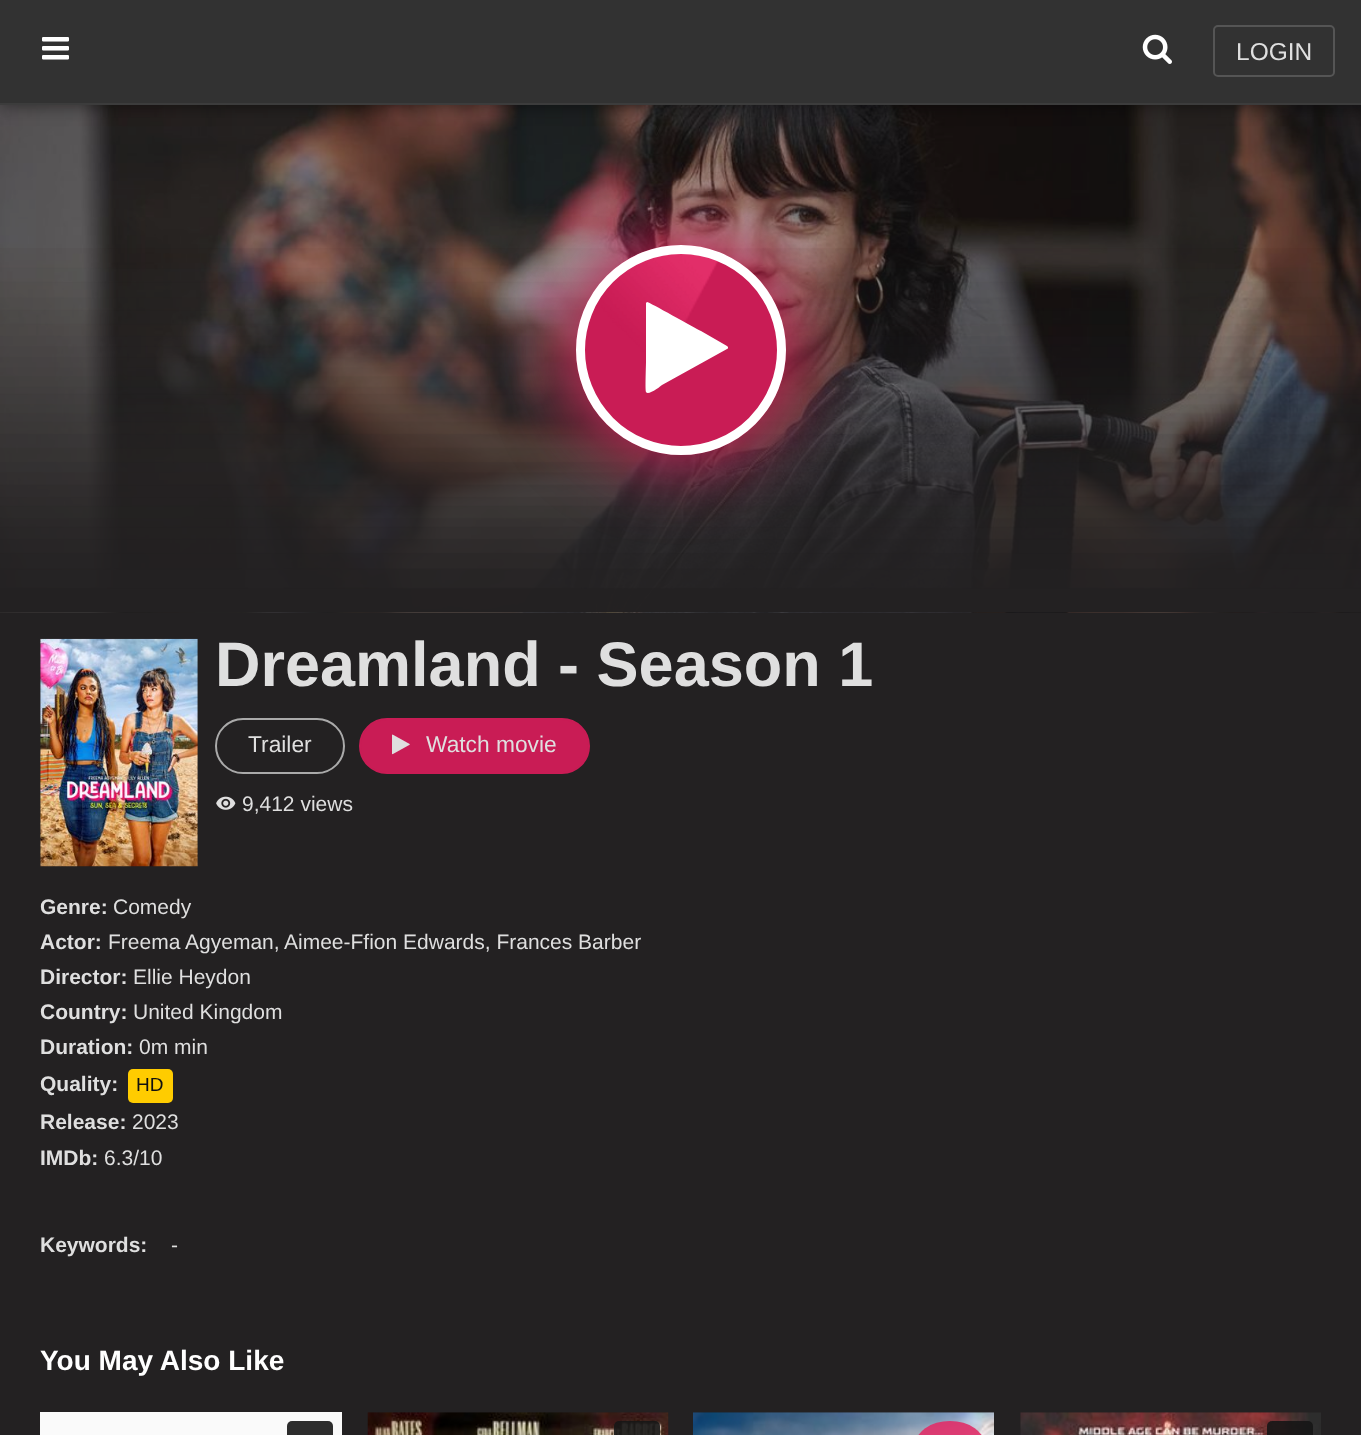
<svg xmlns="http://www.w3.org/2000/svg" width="1361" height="1435">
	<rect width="100%" height="100%" fill="#232122" />
	<image x="0" y="105" width="1361" height="508" href="assets/img3.png" />
	<rect x="0" y="0" width="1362" height="105" fill="#000000" fill-opacity="0.5" filter="blur(9px)" />
	<rect x="0" y="0" width="1361" height="103" fill="#323232" />
	<image x="42" y="37" width="27" height="23" href="assets/img1.png" />
	<image x="1142" y="34" width="30" height="30" href="assets/img2.png" />
	<rect x="1214" y="26" width="120" height="50" rx="4" fill="none" stroke="#555555" stroke-width="2" />
	<text x="1236" y="60" font-family="Liberation Sans" font-size="24.5" fill="#DFDFDF">LOGIN</text>
	<rect x="0" y="103" width="1361" height="2" fill="#3C3C3C" />
	<image x="0" y="248" width="1361" height="365" href="assets/img4.png" />
	<rect x="567" y="236" width="228" height="228" rx="114" fill="#C71C54" filter="blur(35px)" />
	<circle cx="681" cy="350" r="105" fill="#C91C55" />
	<image x="601" y="253" width="121" height="99" href="assets/img5.png" />
	<circle cx="681" cy="350" r="100.5" fill="none" stroke="#FFFFFF" stroke-width="9" />
	<path d="M727 349L662 385C661 386 648 396 646 392C645 390 646 365 646 362V303L647 302C649 302 695 328 701 331L727 346L728 347C728 348 728 349 727 349Z" fill="#FFFFFF" />
	<image x="40" y="638" width="158" height="229" href="assets/img6.png" />
	<text x="215" y="686" font-family="Liberation Sans" font-size="63" font-weight="700" fill="#DFDFDF">Dreamland - Season 1</text>
	<rect x="216" y="719" width="128" height="54" rx="27" fill="none" stroke="#AAAAAA" stroke-width="2" />
	<text x="248" y="752" font-family="Liberation Sans" font-size="22.75" fill="#DFDFDF">Trailer</text>
	<rect x="360" y="719" width="229" height="54" rx="27" fill="#C91C55" stroke="#C91C55" stroke-width="2" />
	<image x="392" y="734" width="18" height="21" href="assets/img7.png" />
	<text x="426" y="752" font-family="Liberation Sans" font-size="22.75" fill="#DFDFDF">Watch movie</text>
	<image x="216" y="796" width="20" height="14" href="assets/img8.png" />
	<text x="242" y="811" font-family="Liberation Sans" font-size="21" fill="#DFDFDF">9,412 views</text>
	<text x="40" y="914" font-family="Liberation Sans" font-size="21" font-weight="700" fill="#DFDFDF">Genre:</text>
	<text x="113" y="914" font-family="Liberation Sans" font-size="21" fill="#DFDFDF">Comedy</text>
	<text x="40" y="949" font-family="Liberation Sans" font-size="21" font-weight="700" fill="#DFDFDF">Actor:</text>
	<g font-family="Liberation Sans" font-size="21" fill="#DFDFDF">
		<text x="108" y="949">Freema Agyeman,</text>
		<text x="284" y="949">Aimee-Ffion Edwards, Frances Barber</text>
	</g>
	<text x="40" y="984" font-family="Liberation Sans" font-size="21" font-weight="700" fill="#DFDFDF">Director:</text>
	<text x="133" y="984" font-family="Liberation Sans" font-size="21" fill="#DFDFDF">Ellie Heydon</text>
	<text x="40" y="1019" font-family="Liberation Sans" font-size="21" font-weight="700" fill="#DFDFDF">Country:</text>
	<text x="133" y="1019" font-family="Liberation Sans" font-size="21" fill="#DFDFDF">United Kingdom</text>
	<text x="40" y="1054" font-family="Liberation Sans" font-size="21" font-weight="700" fill="#DFDFDF">Duration:</text>
	<text x="139" y="1054" font-family="Liberation Sans" font-size="21" fill="#DFDFDF">0m min</text>
	<text x="40" y="1091" font-family="Liberation Sans" font-size="21" font-weight="700" fill="#DFDFDF">Quality:</text>
	<rect x="128" y="1069" width="45" height="34" rx="5" fill="#FFCC00" />
	<text x="136" y="1091" font-family="Liberation Sans" font-size="19" fill="#111111">HD</text>
	<text x="40" y="1129" font-family="Liberation Sans" font-size="21" font-weight="700" fill="#DFDFDF">Release:</text>
	<text x="132" y="1129" font-family="Liberation Sans" font-size="21" fill="#DFDFDF">2023</text>
	<text x="40" y="1165" font-family="Liberation Sans" font-size="21" font-weight="700" fill="#DFDFDF">IMDb:</text>
	<text x="104" y="1165" font-family="Liberation Sans" font-size="21" fill="#DFDFDF">6.3/10</text>
	<text x="40" y="1252" font-family="Liberation Sans" font-size="21" font-weight="700" fill="#DFDFDF">Keywords:</text>
	<text x="171" y="1252" font-family="Liberation Sans" font-size="21" fill="#DFDFDF">-</text>
	<text x="40" y="1370" font-family="Liberation Sans" font-size="28" font-weight="700" fill="#FFFFFF">You May Also Like</text>
	<rect x="40" y="1412" width="302" height="23" fill="#FAFAFA" />
	<rect x="287" y="1421" width="46" height="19" rx="5" fill="#2D2D2D" />
	<image x="367" y="1412" width="302" height="23" href="assets/img9.png" />
	<rect x="614" y="1421" width="46" height="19" rx="5" fill="#161616" fill-opacity="0.9" />
	<image x="693" y="1412" width="301" height="23" href="assets/img10.png" />
	<rect x="915" y="1421" width="70" height="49" rx="35" fill="#E02D68" fill-opacity="0.9" />
	<image x="1020" y="1412" width="301" height="23" href="assets/img11.png" />
	<rect x="1267" y="1421" width="46" height="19" rx="5" fill="#161616" fill-opacity="0.9" />
</svg>
